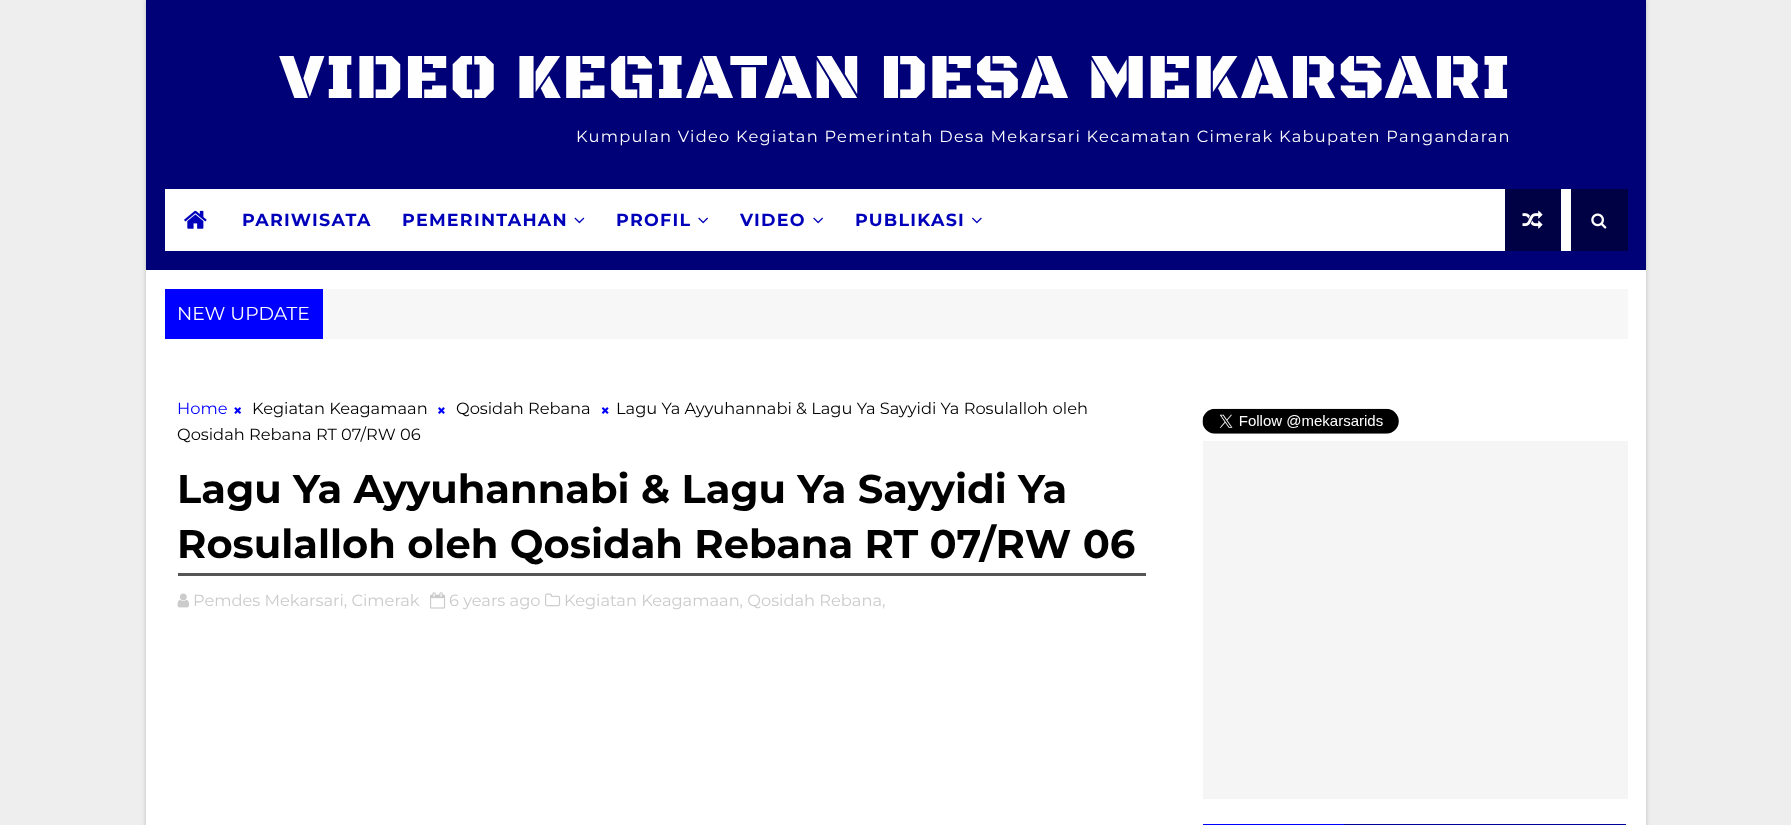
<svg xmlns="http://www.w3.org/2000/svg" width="1791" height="825">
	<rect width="100%" height="100%" fill="#EEEEEE" />
	<rect x="146" y="0" width="1500" height="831" fill="#000000" fill-opacity="0.2" filter="blur(2px)" />
	<rect x="146" y="270" width="1500" height="555" fill="#FFFFFF" />
	<rect x="146" y="0" width="1500" height="270" fill="#000077" />
	<text x="280" y="98" font-family="Black Ops One" font-size="65" font-weight="900" letter-spacing="1.25" fill="#FEFEFE">VIDEO KEGIATAN DESA MEKARSARI</text>
	<text x="576" y="142" font-family="Montserrat" font-size="16.25" letter-spacing="1.25" fill="#FEFEFE">Kumpulan Video Kegiatan Pemerintah Desa Mekarsari Kecamatan Cimerak Kabupaten Pangandaran</text>
	<rect x="165" y="189" width="1406" height="62" fill="#FFFFFF" />
	<image x="184" y="210" width="23" height="19" href="assets/img1.png" />
	<g font-family="Montserrat" font-size="17.5" font-weight="700" letter-spacing="1.25" fill="#0000BB">
		<text x="242" y="226">PARIWISATA</text>
		<text x="402" y="226">PEMERINTAHAN</text>
	</g>
	<image x="574" y="217" width="11" height="7" href="assets/img2.png" />
	<text x="616" y="226" font-family="Montserrat" font-size="17.5" font-weight="700" letter-spacing="1.25" fill="#0000BB">PROFIL</text>
	<image x="698" y="217" width="10" height="7" href="assets/img3.png" />
	<text x="740" y="226" font-family="Montserrat" font-size="17.5" font-weight="700" letter-spacing="1.25" fill="#0000BB">VIDEO</text>
	<image x="813" y="217" width="10" height="7" href="assets/img3.png" />
	<text x="855" y="226" font-family="Montserrat" font-size="17.5" font-weight="700" letter-spacing="1.25" fill="#0000BB">PUBLIKASI</text>
	<image x="972" y="217" width="10" height="7" href="assets/img4.png" />
	<rect x="1505" y="189" width="56" height="62" fill="#000044" />
	<image x="1522" y="210" width="21" height="19" href="assets/img5.png" />
	<rect x="1571" y="189" width="57" height="62" fill="#000044" />
	<image x="1591" y="213" width="16" height="16" href="assets/img6.png" />
	<rect x="323" y="289" width="1305" height="50" fill="#F7F7F7" />
	<rect x="165" y="289" width="158" height="50" fill="#0000FF" />
	<text x="177" y="320" font-family="Montserrat" font-size="18.75" fill="#FEFEFE">NEW UPDATE</text>
	<text x="177" y="414" font-family="Montserrat" font-size="16.25" fill="#0000FF">Home</text>
	<image x="234" y="407" width="7" height="7" href="assets/img7.png" />
	<text x="252" y="414" font-family="Montserrat" font-size="16.25" fill="#000000">Kegiatan Keagamaan</text>
	<image x="438" y="407" width="7" height="7" href="assets/img8.png" />
	<text x="456" y="414" font-family="Montserrat" font-size="16.25" fill="#000000">Qosidah Rebana</text>
	<image x="601" y="407" width="8" height="7" href="assets/img9.png" />
	<g font-family="Montserrat" font-size="16.25" fill="#000000">
		<text x="616" y="414">Lagu Ya Ayyuhannabi &amp; Lagu Ya Sayyidi Ya Rosulalloh oleh</text>
		<text x="177" y="440">Qosidah Rebana RT 07/RW 06</text>
	</g>
	<rect x="178" y="573" width="968" height="3" fill="#555555" />
	<g font-family="Montserrat" font-size="40" font-weight="700" fill="#000000">
		<text x="177" y="503">Lagu Ya Ayyuhannabi &amp; Lagu Ya Sayyidi Ya</text>
		<text x="177" y="558">Rosulalloh oleh Qosidah Rebana RT 07/RW 06</text>
	</g>
	<image x="177" y="593" width="12" height="15" href="assets/img10.png" />
	<text x="193" y="606" font-family="Montserrat" font-size="16.25" fill="#CBCBCB">Pemdes Mekarsari, Cimerak</text>
	<image x="430" y="592" width="16" height="17" href="assets/img11.png" />
	<text x="449" y="606" font-family="Montserrat" font-size="16.25" fill="#CBCBCB">6 years ago</text>
	<image x="545" y="593" width="16" height="14" href="assets/img12.png" />
	<text x="564" y="606" font-family="Montserrat" font-size="16.25" fill="#CBCBCB">Kegiatan Keagamaan, Qosidah Rebana,</text>
	<image x="1202" y="408" width="197" height="26" href="assets/img13.png" />
	<rect x="1203" y="441" width="425" height="358" fill="#F5F5F5" />
	<rect x="1203" y="824" width="141" height="1" fill="#0000FF" />
	<rect x="1344" y="824" width="282" height="1" fill="#000099" />
</svg>
